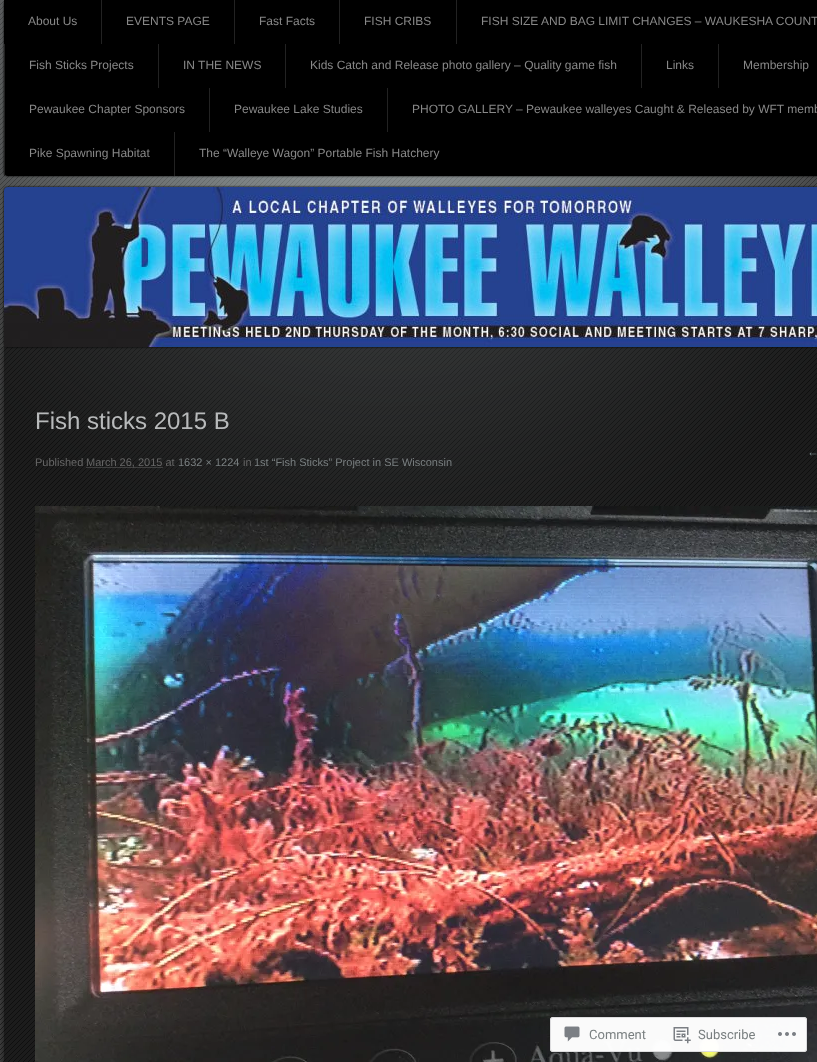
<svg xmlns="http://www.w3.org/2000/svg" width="817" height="1062">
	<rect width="100%" height="100%" fill="#FFFFFF" />
	<image x="0" y="0" width="817" height="1062" href="assets/img1.png" />
	<image x="0" y="0" width="817" height="506" href="assets/img2.png" />
	<rect x="4" y="0" width="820" height="176" rx="4" fill="#000000" filter="blur(1px)" />
	<path d="M4 0H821V172C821 174 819 176 817 176H8C6 176 4 174 4 172Z" fill="#000000" />
	<text x="28" y="25" font-family="Liberation Sans" font-size="12" fill="#888888">About Us</text>
	<rect x="101" y="0" width="1" height="44" fill="#222222" />
	<text x="126" y="25" font-family="Liberation Sans" font-size="12" fill="#888888">EVENTS PAGE</text>
	<rect x="234" y="0" width="1" height="44" fill="#222222" />
	<text x="259" y="25" font-family="Liberation Sans" font-size="12" fill="#888888">Fast Facts</text>
	<rect x="339" y="0" width="1" height="44" fill="#222222" />
	<text x="364" y="25" font-family="Liberation Sans" font-size="12" fill="#888888">FISH CRIBS</text>
	<rect x="456" y="0" width="1" height="44" fill="#222222" />
	<text x="481" y="25" font-family="Liberation Sans" font-size="12" fill="#888888">FISH SIZE AND BAG LIMIT CHANGES – WAUKESHA COUNT</text>
	<rect x="4" y="44" width="1" height="132" fill="#222222" />
	<text x="29" y="69" font-family="Liberation Sans" font-size="12" fill="#888888">Fish Sticks Projects</text>
	<rect x="158" y="44" width="1" height="44" fill="#222222" />
	<text x="183" y="69" font-family="Liberation Sans" font-size="12" fill="#888888">IN THE NEWS</text>
	<rect x="285" y="44" width="1" height="44" fill="#222222" />
	<text x="310" y="69" font-family="Liberation Sans" font-size="12" fill="#888888">Kids Catch and Release photo gallery – Quality game fish</text>
	<rect x="641" y="44" width="1" height="44" fill="#222222" />
	<text x="666" y="69" font-family="Liberation Sans" font-size="12" fill="#888888">Links</text>
	<rect x="718" y="44" width="1" height="44" fill="#222222" />
	<g font-family="Liberation Sans" font-size="12" fill="#888888">
		<text x="743" y="69">Membership</text>
		<text x="29" y="113">Pewaukee Chapter Sponsors</text>
	</g>
	<rect x="209" y="88" width="1" height="44" fill="#222222" />
	<text x="234" y="113" font-family="Liberation Sans" font-size="12" fill="#888888">Pewaukee Lake Studies</text>
	<rect x="387" y="88" width="1" height="44" fill="#222222" />
	<g font-family="Liberation Sans" font-size="12" fill="#888888">
		<text x="412" y="113">PHOTO GALLERY – Pewaukee walleyes Caught &amp; Released by WFT memb</text>
		<text x="29" y="157">Pike Spawning Habitat</text>
	</g>
	<rect x="174" y="132" width="1" height="44" fill="#222222" />
	<text x="199" y="157" font-family="Liberation Sans" font-size="12" fill="#888888">The “Walleye Wagon” Portable Fish Hatchery</text>
	<image x="1" y="347" width="816" height="715" href="assets/img4.png" />
	<rect x="4" y="187" width="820" height="160" rx="4" fill="#000000" filter="blur(1px)" />
	<image x="4" y="187" width="813" height="160" href="assets/img3.png" />
	<text x="35" y="429" font-family="Liberation Sans" font-size="24" fill="#B8BABB">Fish sticks 2015 B</text>
	<text x="807" y="456" font-family="Liberation Sans" font-size="12" fill="#7F8E91">←</text>
	<text x="35" y="466" font-family="Liberation Sans" font-size="11" fill="#666666">Published</text>
	<path d="M86.5 467.5H163" fill="none" stroke="#666666" stroke-dasharray="1 1" />
	<text x="86" y="466" font-family="Liberation Sans" font-size="11" fill="#666666">March 26, 2015 at</text>
	<text x="178" y="466" font-family="Liberation Sans" font-size="11" fill="#797F80">1632 × 1224</text>
	<text x="243" y="466" font-family="Liberation Sans" font-size="11" fill="#666666">in</text>
	<text x="254" y="466" font-family="Liberation Sans" font-size="11" fill="#797F80">1st “Fish Sticks” Project in SE Wisconsin</text>
	<image x="35" y="506" width="782" height="556" href="assets/img5.png" />
	<rect x="550" y="1017" width="257" height="35" rx="3" fill="#FFFFFF" fill-opacity="0.98" />
	<rect x="550.5" y="1017.5" width="256" height="34" rx="2.5" fill="none" stroke="#DCDCDE" stroke-opacity="0.98" />
	<image x="564" y="1026" width="16" height="16" href="assets/img6.png" />
	<text x="589" y="1039" font-family="Roboto" font-size="13" fill="#797F80">Comment</text>
	<image x="673" y="1027" width="18" height="17" href="assets/img7.png" />
	<text x="698" y="1039" font-family="Roboto" font-size="13" fill="#797F80">Subscribe</text>
	<image x="778" y="1032" width="18" height="4" href="assets/img8.png" />
</svg>
